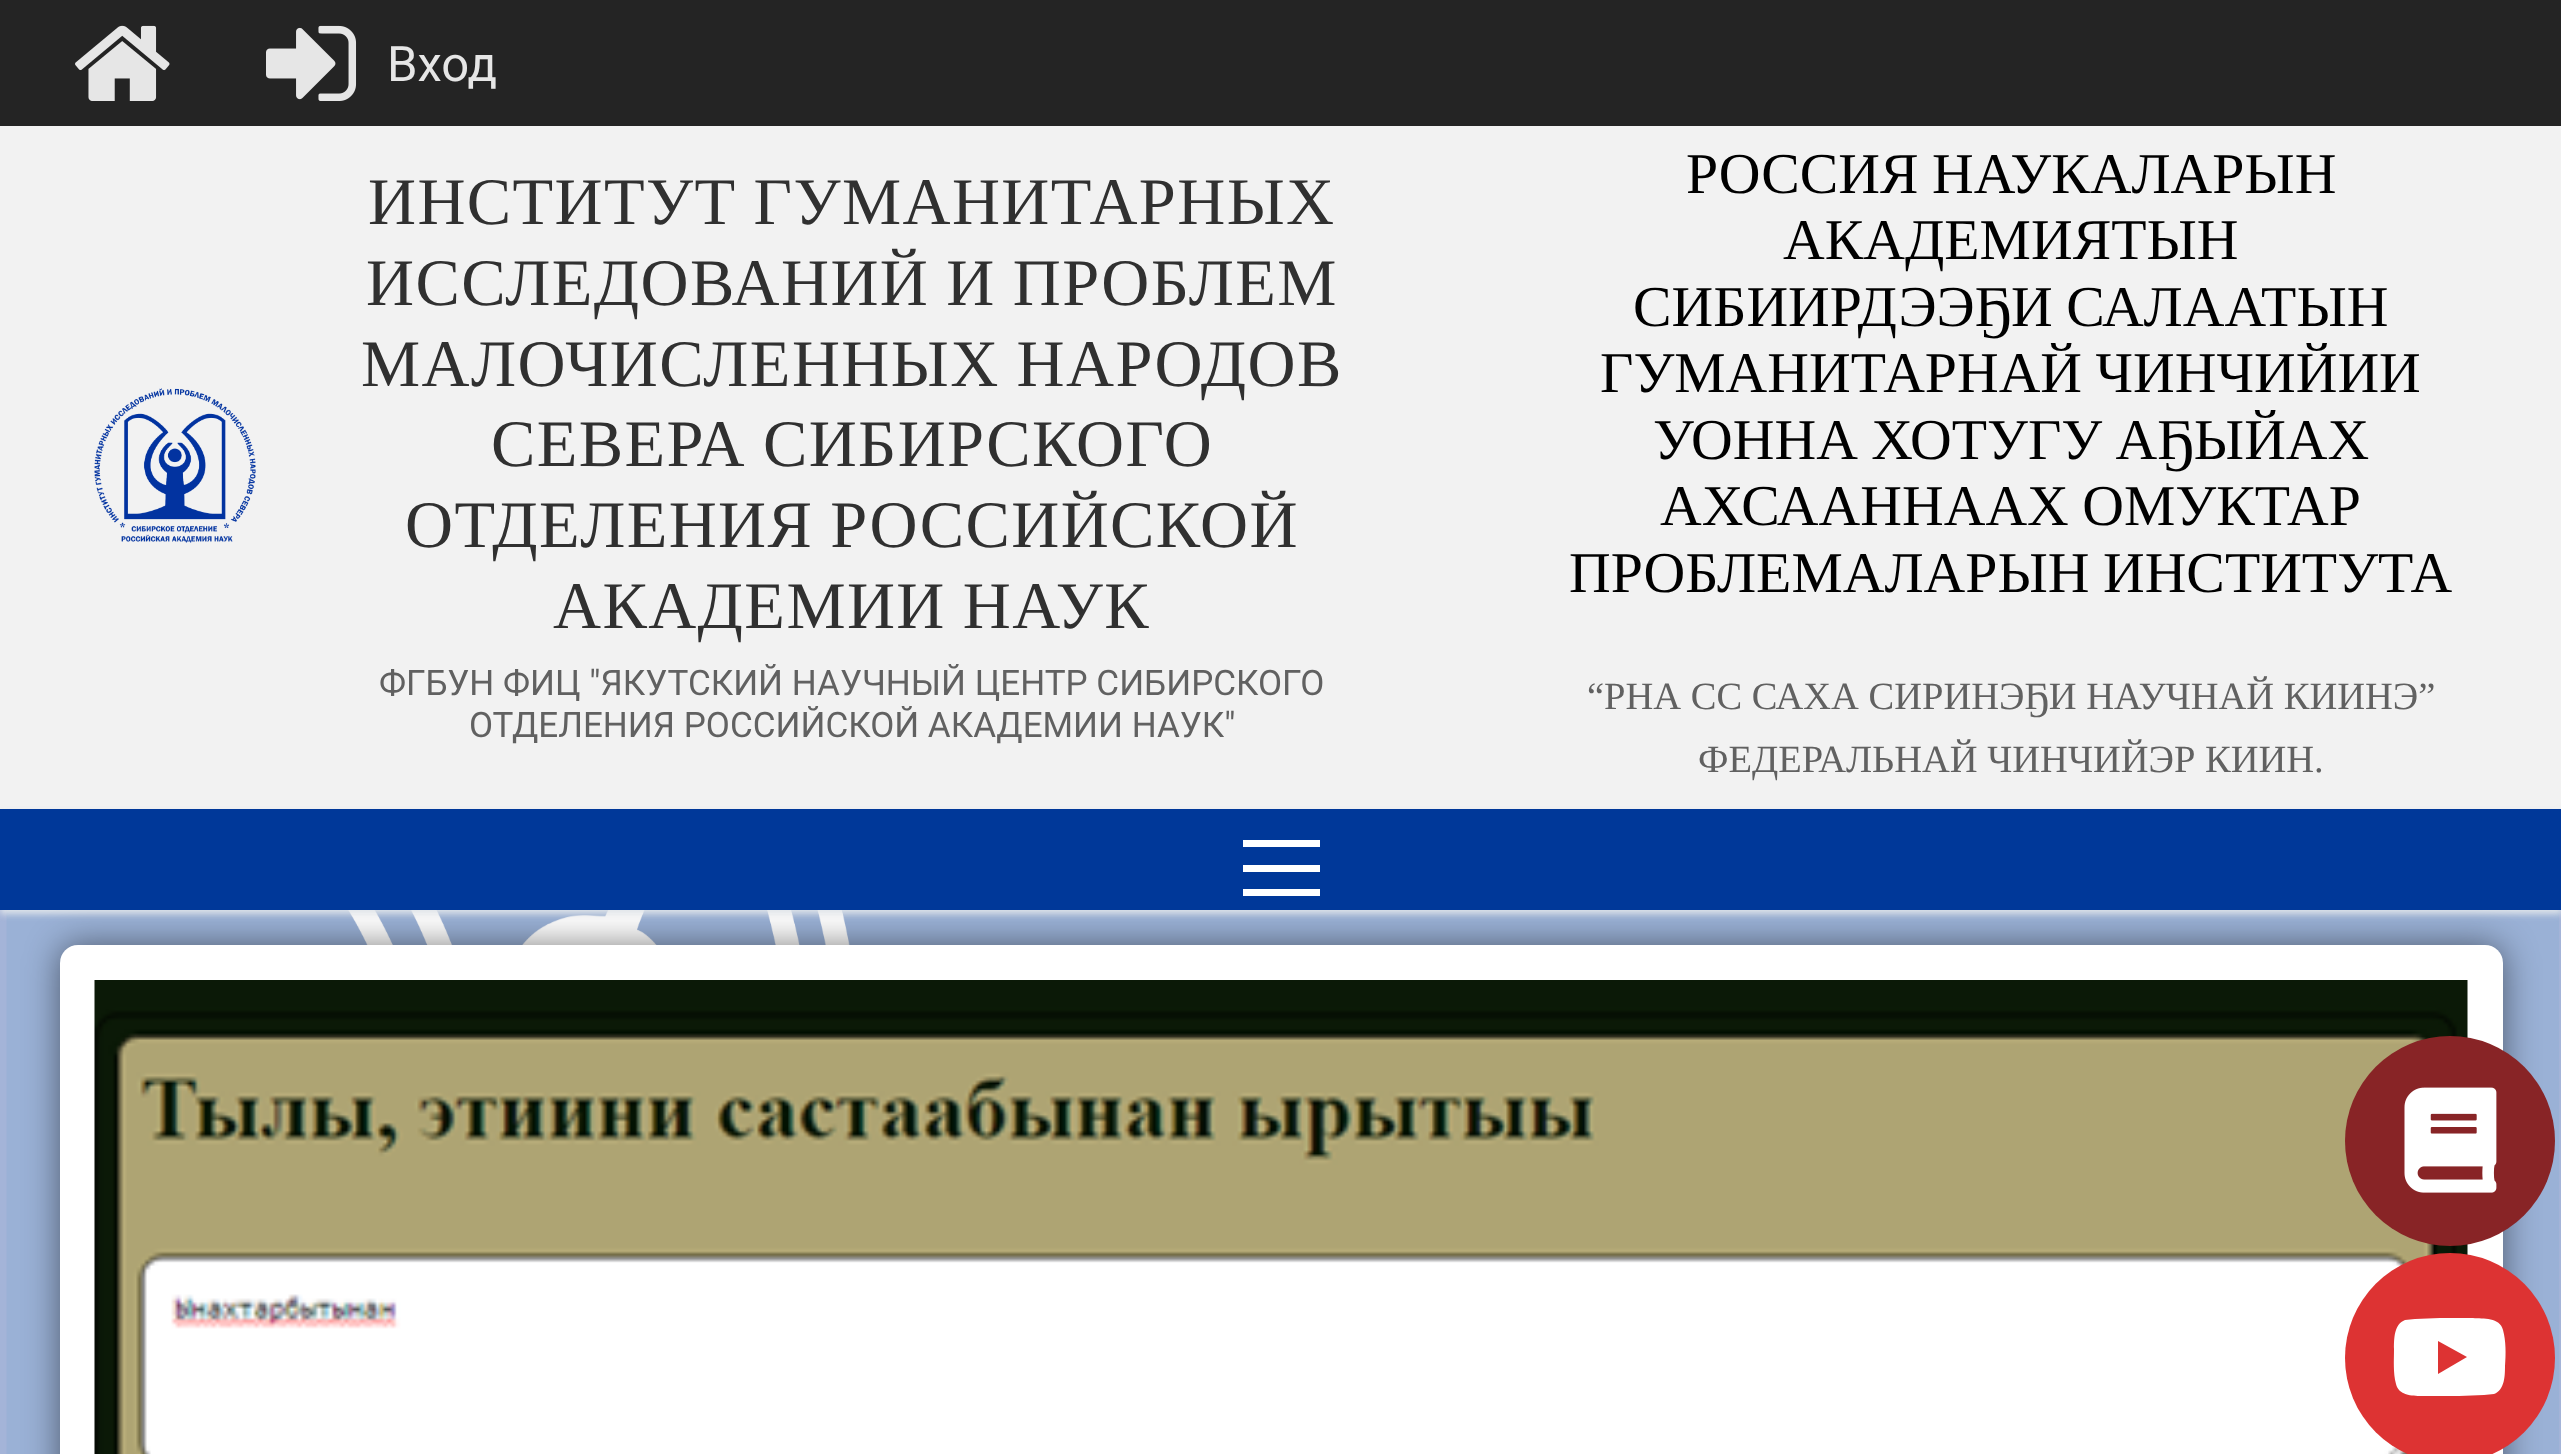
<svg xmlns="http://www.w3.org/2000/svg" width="2561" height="1454">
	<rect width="100%" height="100%" fill="#F2F2F2" />
	<rect x="0" y="0" width="2561" height="126" fill="#242424" />
	<image x="75" y="25" width="95" height="76" href="assets/img1.png" />
	<image x="266" y="25" width="91" height="76" href="assets/img2.png" />
	<text x="387" y="81" font-family="Roboto" font-size="49" fill="#E6E6E6">Вход</text>
	<image x="94" y="388" width="162" height="155" href="assets/img3.png" />
	<g font-family="Liberation Serif" font-size="66.5" letter-spacing="1.4" fill="#303030">
		<text x="368" y="224" word-spacing="-1">ИНСТИТУТ ГУМАНИТАРНЫХ</text>
		<text x="366" y="305" word-spacing="-1">ИССЛЕДОВАНИЙ И ПРОБЛЕМ</text>
		<text x="361" y="386" word-spacing="-1">МАЛОЧИСЛЕННЫХ НАРОДОВ</text>
		<text x="491" y="466" word-spacing="-1">СЕВЕРА СИБИРСКОГО</text>
		<text x="405" y="547" word-spacing="-1">ОТДЕЛЕНИЯ РОССИЙСКОЙ</text>
		<text x="553" y="628" word-spacing="-1">АКАДЕМИИ НАУК</text>
	</g>
	<g font-family="Roboto" font-size="35" fill="#616161">
		<text x="379" y="695">ФГБУН ФИЦ "ЯКУТСКИЙ НАУЧНЫЙ ЦЕНТР СИБИРСКОГО</text>
		<text x="469" y="737">ОТДЕЛЕНИЯ РОССИЙСКОЙ АКАДЕМИИ НАУК"</text>
	</g>
	<g font-family="Liberation Serif" font-size="57.75" fill="#000000">
		<text x="1686" y="193" word-spacing="-1">РОССИЯ НАУКАЛАРЫН</text>
		<text x="1783" y="259">АКАДЕМИЯТЫН</text>
		<text x="1633" y="326" word-spacing="-1">СИБИИРДЭЭҔИ САЛААТЫН</text>
		<text x="1600" y="392" word-spacing="-1">ГУМАНИТАРНАЙ ЧИНЧИЙИИ</text>
		<text x="1653" y="459" word-spacing="-1">УОННА ХОТУГУ АҔЫЙАХ</text>
		<text x="1660" y="525" word-spacing="-1">АХСААННААХ ОМУКТАР</text>
		<text x="1569" y="592" word-spacing="-1">ПРОБЛЕМАЛАРЫН ИНСТИТУТА</text>
	</g>
	<g font-family="Liberation Serif" font-size="38.5" fill="#616161">
		<text x="1587" y="709">“РНА СС САХА СИРИНЭҔИ НАУЧНАЙ КИИНЭ”</text>
		<text x="1698" y="772">ФЕДЕРАЛЬНАЙ ЧИНЧИЙЭР КИИН.</text>
	</g>
	<rect x="0" y="910" width="2561" height="544" fill="#A4B4D8" />
	<image x="6" y="910" width="2553" height="544" href="assets/img4.png" />
	<rect x="0" y="812" width="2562" height="102" fill="#E1E5EA" filter="blur(3.5px)" />
	<rect x="60" y="945" width="2443" height="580" rx="18" fill="#000000" fill-opacity="0.5" filter="blur(17.5px)" />
	<rect x="0" y="809" width="2561" height="101" fill="#003899" />
	<rect x="1243" y="865" width="77" height="7" fill="#FFFFFF" />
	<rect x="1243" y="840" width="77" height="7" fill="#FFFFFF" />
	<rect x="1243" y="889" width="77" height="7" fill="#FFFFFF" />
	<rect x="60" y="945" width="2443" height="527" rx="18" fill="#FFFFFF" />
	<image x="94" y="980" width="2374" height="474" href="assets/img5.png" />
	<circle cx="2450" cy="1141" r="105" fill="#882426" />
	<image x="2404" y="1087" width="93" height="106" href="assets/img6.png" />
	<circle cx="2450" cy="1358" r="105" fill="#DD3333" />
	<path d="M2503 1330C2506 1341 2506 1354 2505 1366C2505 1375 2505 1390 2494 1394L2484 1395L2459 1396H2426C2416 1396 2399 1397 2396 1384C2393 1373 2394 1360 2394 1349C2394 1339 2394 1324 2405 1320L2415 1319L2440 1318H2473C2483 1319 2500 1317 2503 1330ZM2438 1374L2467 1357L2438 1341Z" fill="#FFFFFF" />
</svg>
